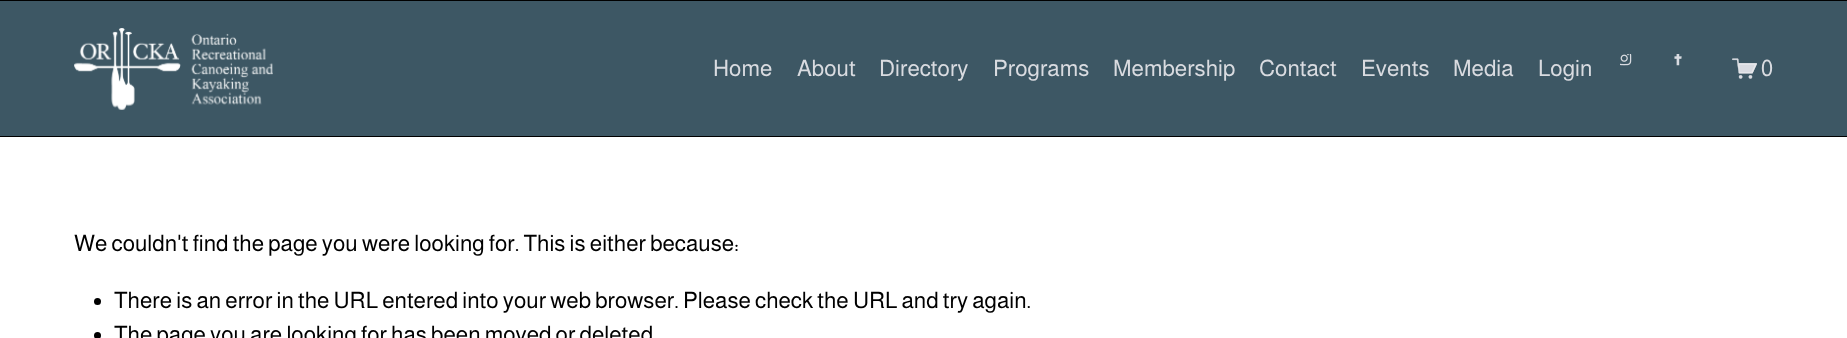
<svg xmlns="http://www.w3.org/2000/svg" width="1847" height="338">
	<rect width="100%" height="100%" fill="#FFFFFF" />
	<rect x="0" y="0" width="1847" height="1" fill="#000000" />
	<rect x="0" y="136" width="1847" height="1" fill="#000000" />
	<rect x="0" y="1" width="1847" height="135" fill="#3D5764" />
	<image x="74" y="28" width="199" height="82" href="assets/img1.png" />
	<g font-family="Almarai" font-size="22.65" fill="#D9DBE0">
		<text x="713" y="76">Home</text>
		<text x="797" y="76">About</text>
		<text x="879" y="76">Directory</text>
		<text x="993" y="76">Programs</text>
		<text x="1113" y="76">Membership</text>
		<text x="1259" y="76">Contact</text>
		<text x="1361" y="76">Events</text>
		<text x="1453" y="76">Media</text>
		<text x="1538" y="76">Login</text>
	</g>
	<image x="1620" y="54" width="12" height="12" href="assets/img2.png" />
	<image x="1674" y="54" width="8" height="12" href="assets/img3.png" />
	<image x="1732" y="58" width="25" height="21" href="assets/img4.png" />
	<text x="1761" y="76" font-family="Almarai" font-size="22.65" fill="#D9DBE0">0</text>
	<text x="74" y="251" font-family="Almarai" font-size="22.65" fill="#000000">We couldn't find the page you were looking for. This is either because:</text>
	<circle cx="97.5" cy="301.5" r="3.5" fill="#000000" />
	<text x="114" y="308" font-family="Almarai" font-size="22.65" fill="#000000">There is an error in the URL entered into your web browser. Please check the URL and try again.</text>
	<circle cx="97.5" cy="335.5" r="3.5" fill="#000000" />
	<text x="114" y="342" font-family="Almarai" font-size="22.65" fill="#000000">The page you are looking for has been moved or deleted</text>
</svg>
